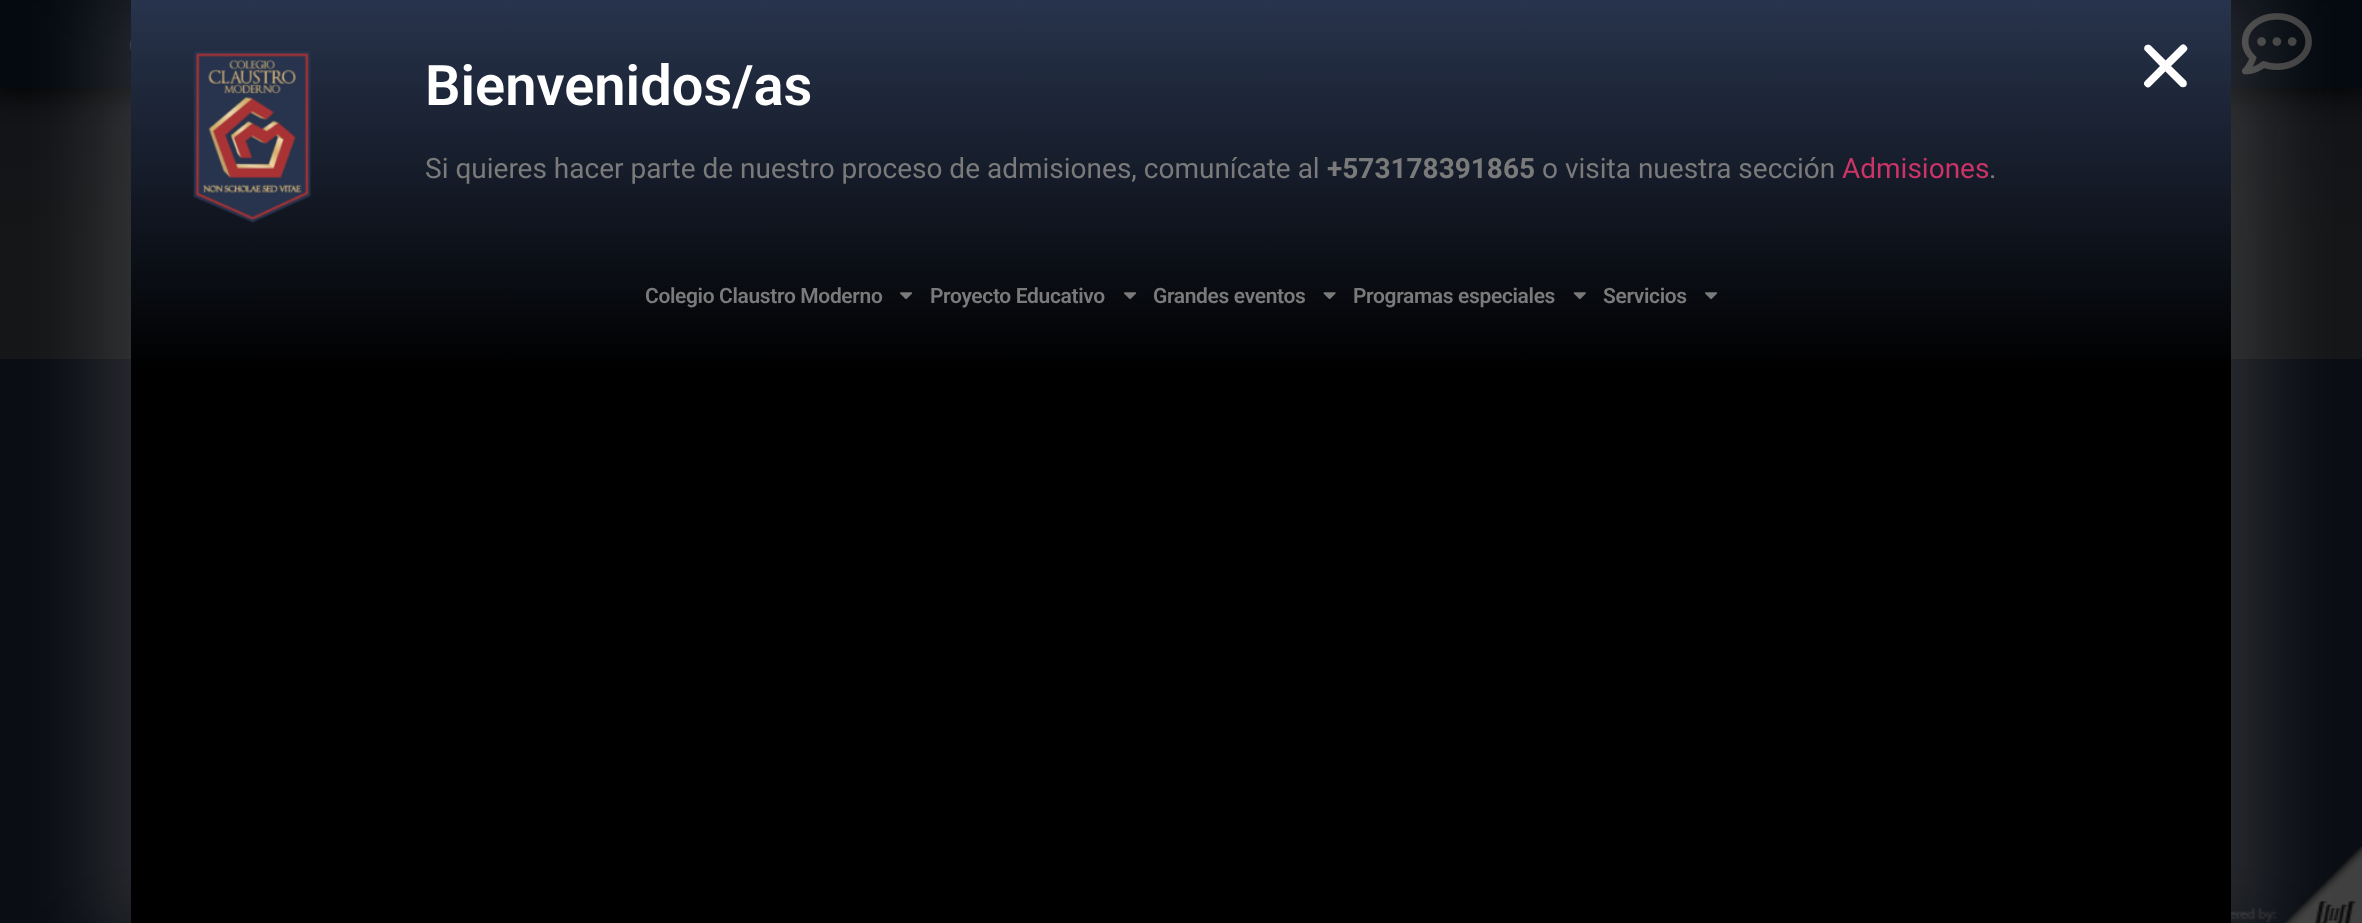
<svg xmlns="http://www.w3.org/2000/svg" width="2362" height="923">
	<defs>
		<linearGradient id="g1" gradientUnits="userSpaceOnUse" x1="1181" y1="-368" x2="1181" y2="781"><stop offset="0.32" stop-color="#0F1216" /><stop offset="0.53" stop-color="#151618" /></linearGradient>
		<linearGradient id="g2" gradientUnits="userSpaceOnUse" x1="1181" y1="0" x2="1181" y2="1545"><stop offset="0" stop-color="#28344D" /><stop offset="0.24" stop-color="#000000" /></linearGradient>
	</defs>
	<rect width="100%" height="100%" fill="#FFFFFF" />
	<rect x="0" y="88" width="2362" height="271" fill="url(#g1)" />
	<rect x="-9" y="-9" width="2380" height="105" fill="#000000" fill-opacity="0.73" filter="blur(13px)" />
	<rect x="0" y="0" width="2362" height="88" fill="#050910" />
	<image x="130" y="39" width="1" height="12" href="assets/img1.png" />
	<image x="2241" y="13" width="71" height="62" href="assets/img2.png" />
	<rect x="0" y="359" width="2362" height="564" fill="#0A0D13" />
	<image x="2231" y="847" width="131" height="76" href="assets/img8.png" />
	<rect x="105" y="-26" width="2153" height="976" fill="#FFFFFF" fill-opacity="0.15" filter="blur(44px)" />
	<rect x="131" y="0" width="2100" height="923" fill="url(#g2)" />
	<image x="193" y="51" width="118" height="172" href="assets/img3.png" />
	<text x="425" y="105" font-family="Roboto" font-size="56" font-weight="600" fill="#FFFFFF">Bienvenidos/as</text>
	<text x="425" y="178" font-family="Roboto" font-size="28" fill="#7A7A7A">Si quieres hacer parte de nuestro proceso de admisiones, comunícate al</text>
	<text x="1327" y="178" font-family="Roboto" font-size="28" font-weight="700" fill="#7A7A7A">+573178391865</text>
	<text x="1542" y="178" font-family="Roboto" font-size="28" fill="#7A7A7A">o visita nuestra sección</text>
	<text x="1842" y="178" font-family="Roboto" font-size="28" fill="#CC3366">Admisiones</text>
	<text x="1989" y="178" font-family="Roboto" font-size="28" fill="#7A7A7A">.</text>
	<text x="645" y="303" font-family="Roboto" font-size="21" font-weight="600" letter-spacing="-0.35" fill="#7A7A7A">Colegio Claustro Moderno</text>
	<image x="900" y="292" width="13" height="8" href="assets/img4.png" />
	<text x="930" y="303" font-family="Roboto" font-size="21" font-weight="600" letter-spacing="-0.35" fill="#7A7A7A">Proyecto Educativo</text>
	<image x="1124" y="292" width="13" height="8" href="assets/img4.png" />
	<text x="1153" y="303" font-family="Roboto" font-size="21" font-weight="600" letter-spacing="-0.35" fill="#7A7A7A">Grandes eventos</text>
	<image x="1323" y="292" width="13" height="8" href="assets/img5.png" />
	<text x="1353" y="303" font-family="Roboto" font-size="21" font-weight="600" letter-spacing="-0.35" fill="#7A7A7A">Programas especiales</text>
	<image x="1573" y="292" width="13" height="8" href="assets/img6.png" />
	<text x="1603" y="303" font-family="Roboto" font-size="21" font-weight="600" letter-spacing="-0.35" fill="#7A7A7A">Servicios</text>
	<image x="1705" y="292" width="13" height="8" href="assets/img4.png" />
	<image x="2143" y="44" width="45" height="44" href="assets/img7.png" />
</svg>
